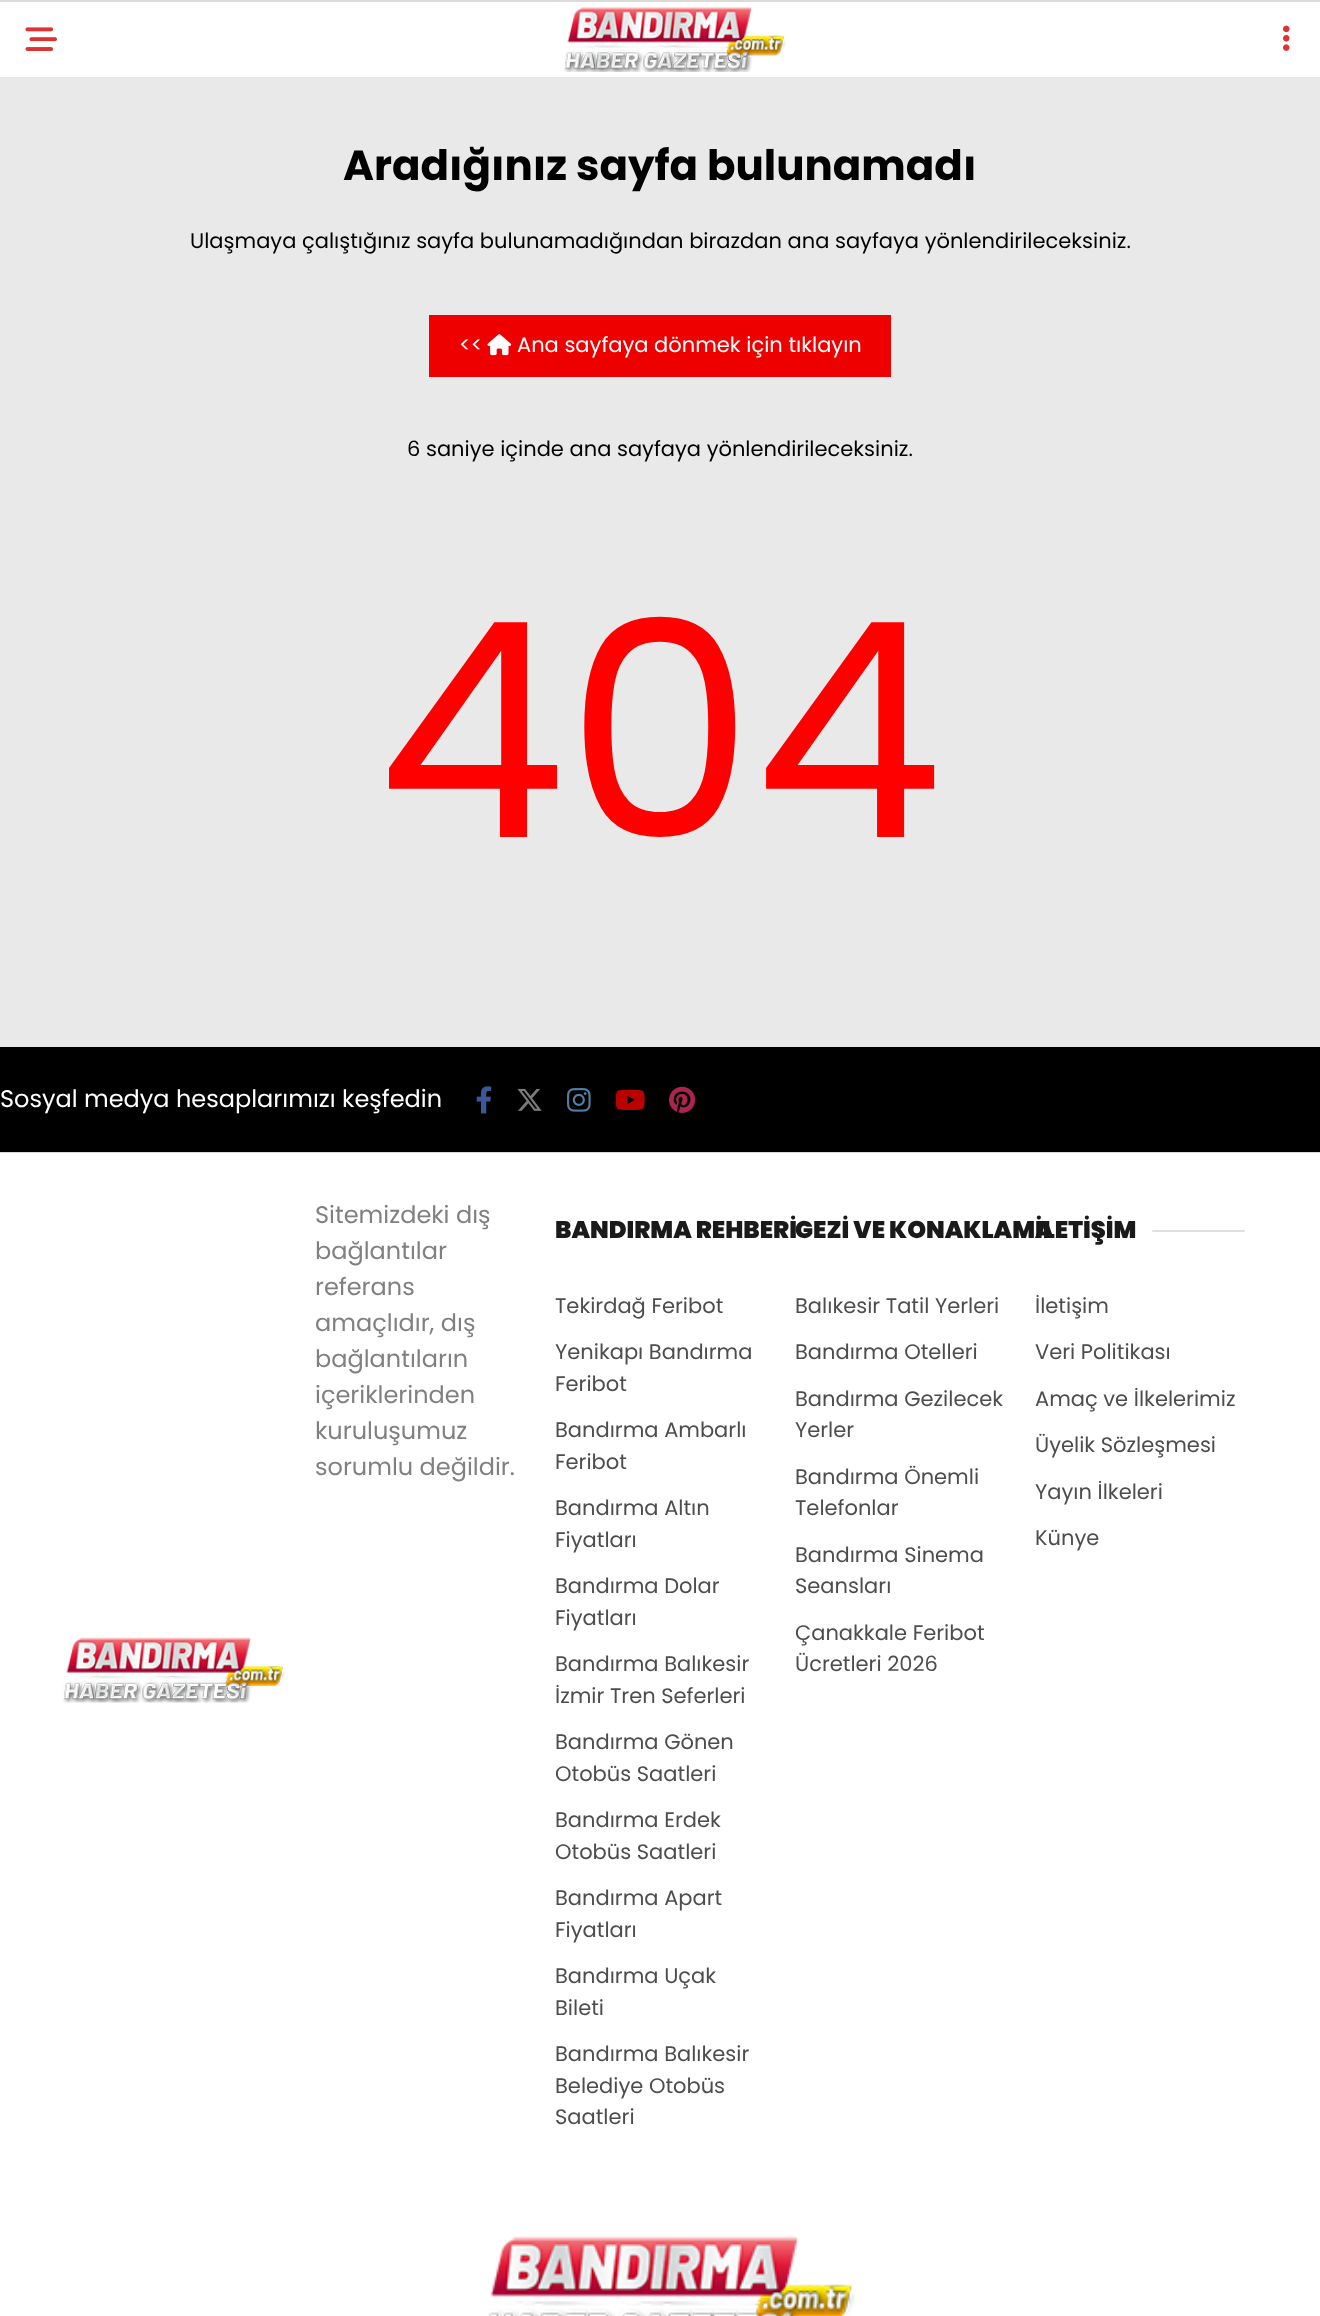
<svg xmlns="http://www.w3.org/2000/svg" width="1320" height="2316">
	<rect width="100%" height="100%" fill="#E9E9E9" />
	<rect x="0" y="0" width="1320" height="2" fill="#DBDBDB" />
	<rect x="0" y="2" width="1320" height="75" fill="#FFFFFF" />
	<image x="25" y="27" width="32" height="24" href="assets/img1.png" />
	<image x="563" y="7" width="223" height="65" href="assets/img2.png" />
	<image x="1283" y="25" width="7" height="26" href="assets/img3.png" />
	<text x="343" y="180" font-family="Poppins" font-size="42" font-weight="700" fill="#000000">Aradığınız sayfa bulunamadı</text>
	<text x="190" y="248" font-family="Poppins" font-size="21" fill="#000000">Ulaşmaya çalıştığınız sayfa bulunamadığından birazdan ana sayfaya yönlendirileceksiniz.</text>
	<rect x="429" y="315" width="462" height="62" fill="#EF0000" />
	<text x="459" y="352" font-family="Poppins" font-size="21" fill="#FFFFFF">&lt;&lt;</text>
	<image x="487" y="334" width="25" height="22" href="assets/img4.png" />
	<text x="517" y="352" font-family="Poppins" font-size="21" fill="#FFFFFF">Ana sayfaya dönmek için tıklayın</text>
	<text x="407" y="456" font-family="Poppins" font-size="21" fill="#000000">6 saniye içinde ana sayfaya yönlendirileceksiniz.</text>
	<text x="377" y="837" font-family="Poppins" font-size="300" fill="#FF0000">404</text>
	<rect x="0" y="1047" width="1320" height="105" fill="#000000" />
	<text x="0" y="1107" font-family="Poppins" font-size="24" fill="#FFFFFF">Sosyal medya hesaplarımızı keşfedin</text>
	<image x="476" y="1086" width="16" height="28" href="assets/img5.png" />
	<image x="517" y="1088" width="25" height="23" href="assets/img6.png" />
	<image x="567" y="1088" width="24" height="24" href="assets/img7.png" />
	<image x="615" y="1089" width="30" height="21" href="assets/img8.png" />
	<image x="669" y="1086" width="27" height="27" href="assets/img9.png" />
	<rect x="0" y="1153" width="1320" height="1163" fill="#FFFFFF" />
	<rect x="0" y="1152" width="1320" height="1" fill="#D9D9D9" />
	<g font-family="Poppins" font-size="24" fill="#808080">
		<text x="315" y="1223">Sitemizdeki dış</text>
		<text x="315" y="1259">bağlantılar</text>
		<text x="315" y="1295">referans</text>
		<text x="315" y="1331">amaçlıdır, dış</text>
		<text x="315" y="1367">bağlantıların</text>
		<text x="315" y="1403">içeriklerinden</text>
		<text x="315" y="1439">kuruluşumuz</text>
		<text x="315" y="1475">sorumlu değildir.</text>
	</g>
	<text x="555" y="1238" font-family="Poppins" font-size="24" font-weight="900" fill="#1A1A1A">BANDIRMA REHBERİ</text>
	<g font-family="Poppins" font-size="21" fill="#4D4D4D">
		<text x="555" y="1313">Tekirdağ Feribot</text>
		<text x="555" y="1359">Yenikapı Bandırma</text>
		<text x="555" y="1391">Feribot</text>
		<text x="555" y="1437">Bandırma Ambarlı</text>
		<text x="555" y="1469">Feribot</text>
		<text x="555" y="1515">Bandırma Altın</text>
		<text x="555" y="1547">Fiyatları</text>
		<text x="555" y="1593">Bandırma Dolar</text>
		<text x="555" y="1625">Fiyatları</text>
		<text x="555" y="1671">Bandırma Balıkesir</text>
		<text x="555" y="1703">İzmir Tren Seferleri</text>
		<text x="555" y="1749">Bandırma Gönen</text>
		<text x="555" y="1781">Otobüs Saatleri</text>
		<text x="555" y="1827">Bandırma Erdek</text>
		<text x="555" y="1859">Otobüs Saatleri</text>
		<text x="555" y="1905">Bandırma Apart</text>
		<text x="555" y="1937">Fiyatları</text>
		<text x="555" y="1983">Bandırma Uçak</text>
		<text x="555" y="2015">Bileti</text>
		<text x="555" y="2061">Bandırma Balıkesir</text>
		<text x="555" y="2093">Belediye Otobüs</text>
		<text x="555" y="2124">Saatleri</text>
	</g>
	<text x="795" y="1238" font-family="Poppins" font-size="24" font-weight="900" fill="#1A1A1A">GEZİ VE KONAKLAMA</text>
	<g font-family="Poppins" font-size="21" fill="#4D4D4D">
		<text x="795" y="1313">Balıkesir Tatil Yerleri</text>
		<text x="795" y="1359">Bandırma Otelleri</text>
		<text x="795" y="1406">Bandırma Gezilecek</text>
		<text x="795" y="1437">Yerler</text>
		<text x="795" y="1484">Bandırma Önemli</text>
		<text x="795" y="1515">Telefonlar</text>
		<text x="795" y="1562">Bandırma Sinema</text>
		<text x="795" y="1593">Seansları</text>
		<text x="795" y="1640">Çanakkale Feribot</text>
		<text x="795" y="1671">Ücretleri 2026</text>
	</g>
	<text x="1035" y="1238" font-family="Poppins" font-size="24" font-weight="900" fill="#1A1A1A">İLETİŞİM</text>
	<rect x="1152" y="1230" width="93" height="2" rx="1" fill="#E0E0E0" />
	<g font-family="Poppins" font-size="21" fill="#4D4D4D">
		<text x="1035" y="1313">İletişim</text>
		<text x="1035" y="1359">Veri Politikası</text>
		<text x="1035" y="1406">Amaç ve İlkelerimiz</text>
		<text x="1035" y="1452">Üyelik Sözleşmesi</text>
		<text x="1035" y="1499">Yayın İlkeleri</text>
		<text x="1035" y="1545">Künye</text>
	</g>
	<image x="62" y="1637" width="223" height="66" href="assets/img10.png" />
	<image x="488" y="2236" width="367" height="80" href="assets/img11.png" />
</svg>
